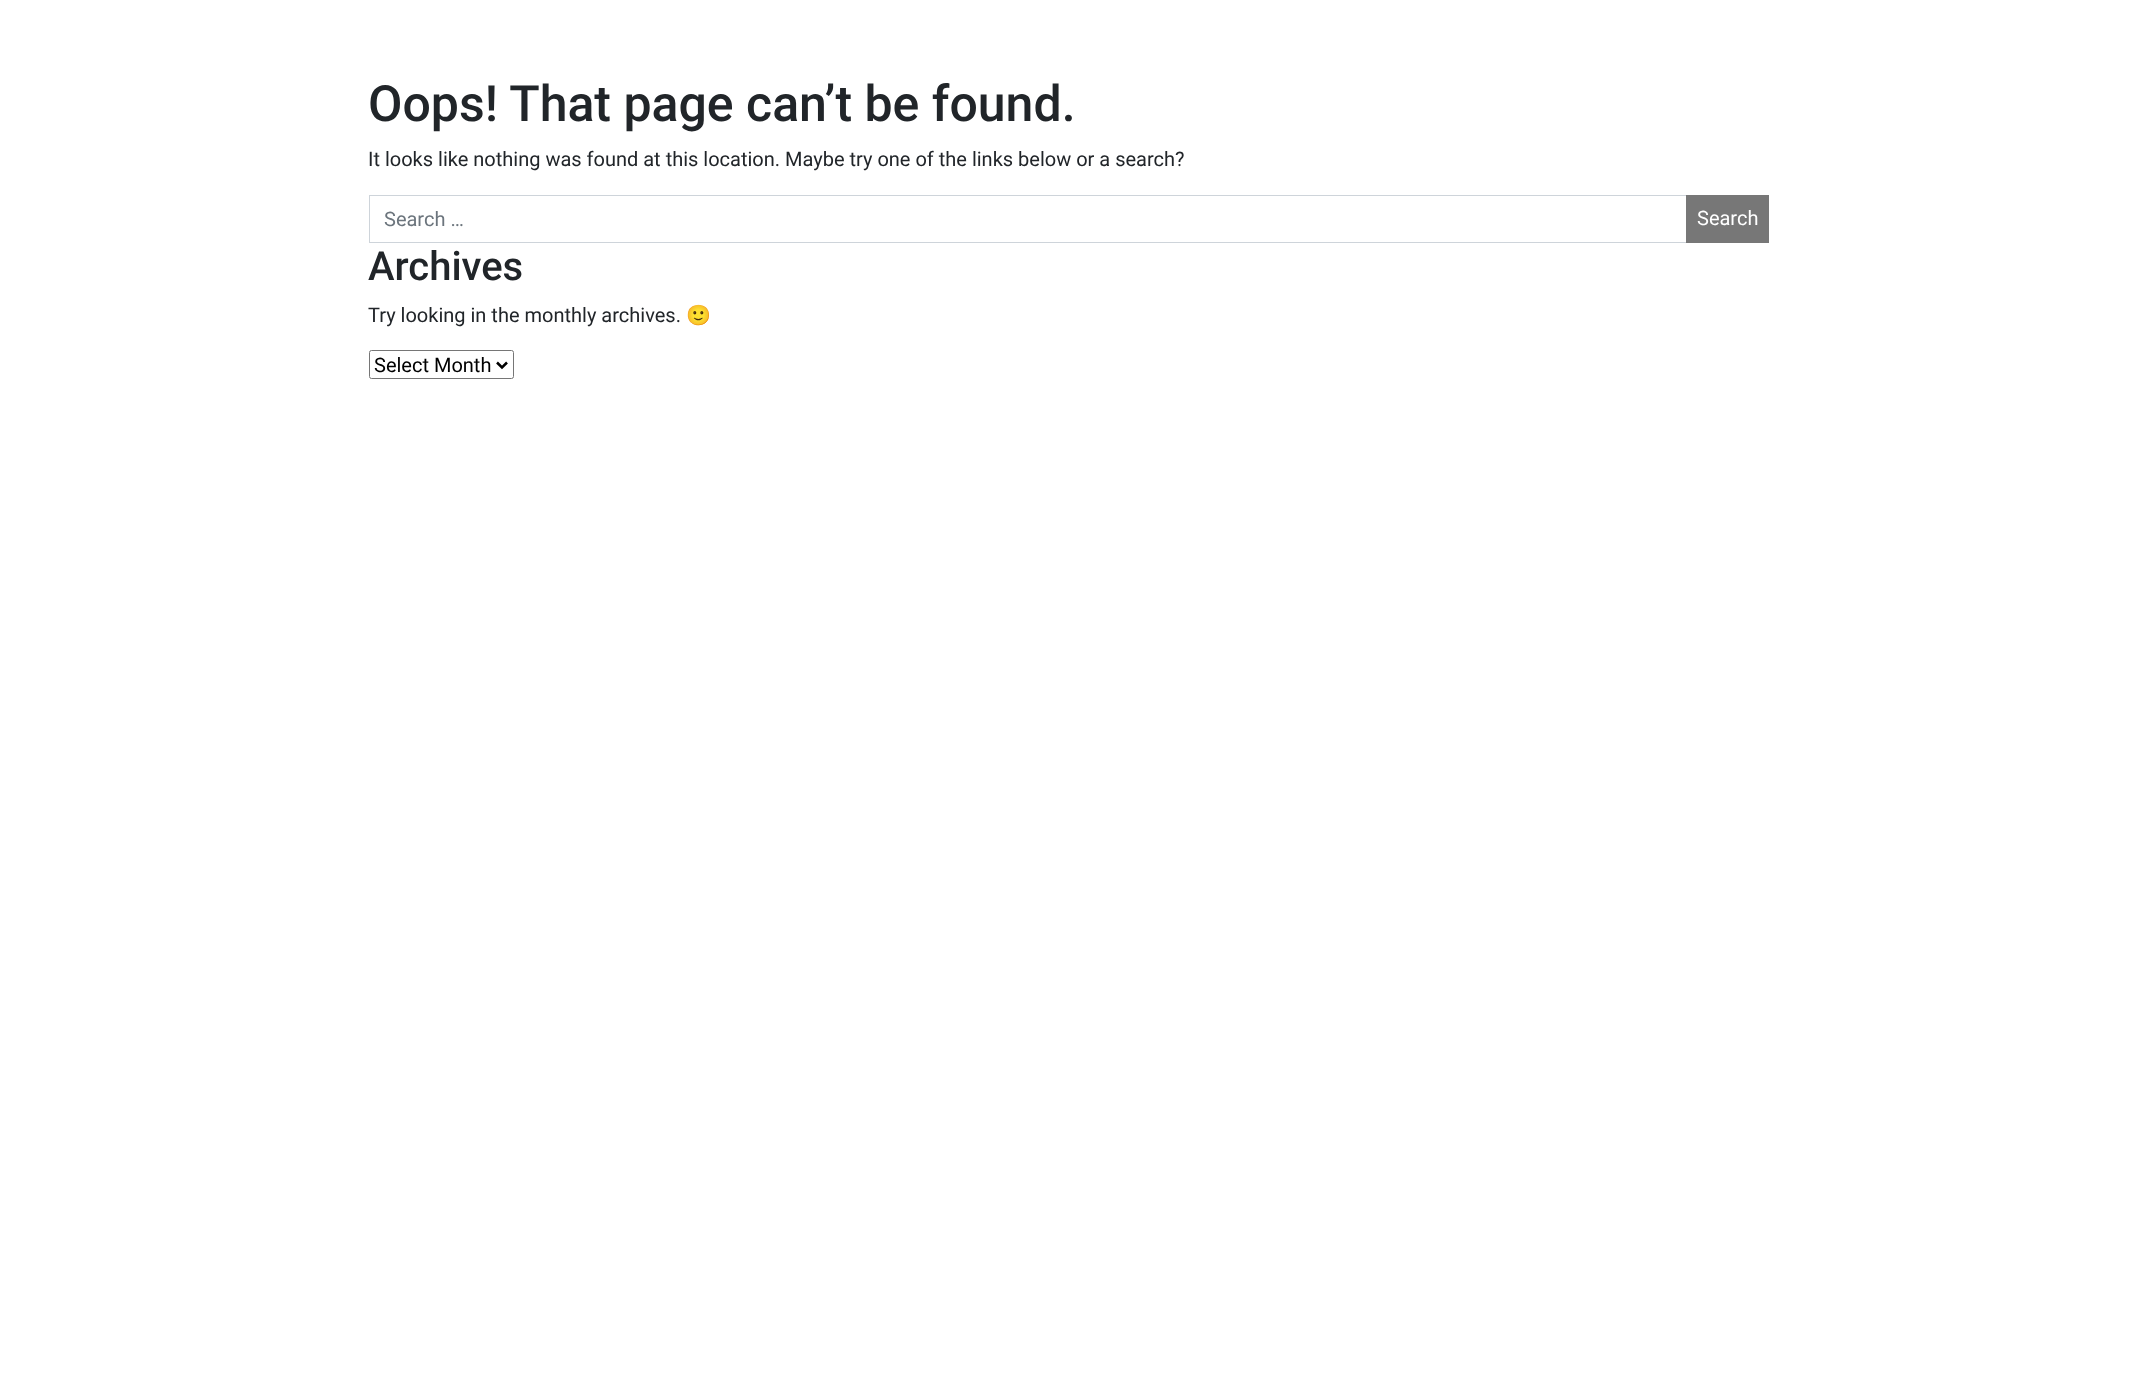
<svg xmlns="http://www.w3.org/2000/svg" width="2136" height="1399">
	<rect width="100%" height="100%" fill="#FFFFFF" />
	<text x="368" y="121" font-family="Roboto" font-size="50" font-weight="500" fill="#212529">Oops! That page can’t be found.</text>
	<text x="368" y="166" font-family="Roboto" font-size="20" fill="#212529">It looks like nothing was found at this location. Maybe try one of the links below or a search?</text>
	<rect x="369.5" y="195.5" width="1318" height="47" fill="none" stroke="#CED4DA" />
	<text x="384" y="226" font-family="Roboto" font-size="20" fill="#6C757D">Search …</text>
	<rect x="1686" y="195" width="83" height="48" fill="#777777" />
	<text x="1697" y="225" font-family="Roboto" font-size="20" fill="#FFFFFF">Search</text>
	<text x="368" y="280" font-family="Roboto" font-size="40" font-weight="500" fill="#212529">Archives</text>
	<text x="368" y="322" font-family="Roboto" font-size="20" fill="#212529">Try looking in the monthly archives.</text>
	<text x="686" y="322" font-family="Noto Color Emoji" font-size="20" fill="#212529">🙂</text>
	<rect x="369.5" y="350.5" width="144" height="28" rx="2" fill="none" stroke="#767676" />
	<path d="M497 362.5L502 367.5L507 362.5" fill="none" stroke="#000000" stroke-width="2.5" />
	<text x="374" y="372" font-family="Roboto" font-size="20" fill="#000000">Select Month</text>
</svg>
